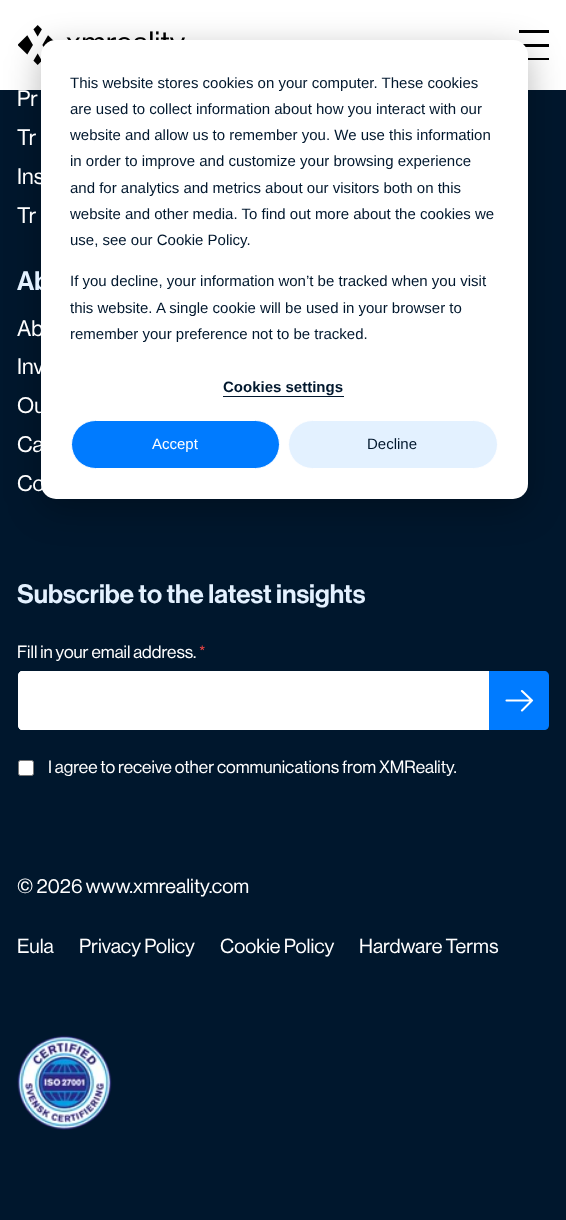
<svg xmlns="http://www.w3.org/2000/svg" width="566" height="1220">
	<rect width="100%" height="100%" fill="#00172D" />
	<rect x="0" y="0" width="566" height="90" fill="#FFFFFF" />
	<image x="18" y="25" width="167" height="40" href="assets/img1.png" />
	<rect x="519" y="44" width="30" height="3" fill="#000000" />
	<rect x="519" y="30" width="30" height="3" fill="#000000" />
	<rect x="528" y="58" width="21" height="2" fill="#000000" />
	<rect x="41" y="50" width="487" height="459" rx="15" fill="#000000" fill-opacity="0.28" filter="blur(17.5px)" />
	<text x="17" y="290" font-family="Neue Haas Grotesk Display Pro" font-size="26.25" font-weight="600" fill="#E3F1FF">Ab</text>
	<rect x="41" y="40" width="487" height="459" rx="15" fill="#FFFFFF" />
	<g font-family="Liberation Sans" font-size="15" fill="#00172D">
		<text x="70" y="88">This website stores cookies on your computer. These cookies</text>
		<text x="70" y="114">are used to collect information about how you interact with our</text>
		<text x="70" y="140">website and allow us to remember you. We use this information</text>
		<text x="70" y="166">in order to improve and customize your browsing experience</text>
		<text x="70" y="193">and for analytics and metrics about our visitors both on this</text>
		<text x="70" y="219">website and other media. To find out more about the cookies we</text>
		<text x="70" y="245">use, see our Cookie Policy.</text>
		<text x="70" y="286">If you decline, your information won’t be tracked when you visit</text>
		<text x="70" y="313">this website. A single cookie will be used in your browser to</text>
		<text x="70" y="339">remember your preference not to be tracked.</text>
	</g>
	<text x="223" y="392" font-family="Liberation Sans" font-size="15" font-weight="700" fill="#00172D">Cookies settings</text>
	<rect x="223" y="396" width="121" height="1" fill="#00172D" />
	<rect x="71.5" y="420.5" width="208" height="48" rx="24" fill="#007BFF" stroke="#FFFFFF" />
	<text x="152" y="449" font-family="Liberation Sans" font-size="15" fill="#FFFFFF">Accept</text>
	<rect x="288.5" y="420.5" width="209" height="48" rx="24" fill="#E3F1FF" stroke="#FFFFFF" />
	<text x="367" y="449" font-family="Liberation Sans" font-size="15" fill="#00172D">Decline</text>
	<g font-family="Neue Haas Grotesk Display Pro" font-size="22" fill="#FFFFFF">
		<text x="17" y="106">Pr</text>
		<text x="17" y="145">Tr</text>
		<text x="17" y="184">Ins</text>
		<text x="17" y="223">Tr</text>
		<text x="17" y="336">Ab</text>
		<text x="17" y="374">Inv</text>
		<text x="17" y="413">Ou</text>
		<text x="17" y="452">Ca</text>
		<text x="17" y="491">Co</text>
	</g>
	<text x="17" y="603" font-family="Neue Haas Grotesk Display Pro" font-size="26.25" font-weight="600" fill="#E3F1FF">Subscribe to the latest insights</text>
	<text x="17" y="658" font-family="Neue Haas Grotesk Display Pro" font-size="17.5" fill="#FFFFFF">Fill in your email address.</text>
	<text x="199" y="658" font-family="Neue Haas Grotesk Display Pro" font-size="17.5" fill="#EC4545">*</text>
	<path d="M23 671H489V730H23C20 730 18 728 18 725V676C18 673 20 671 23 671Z" fill="#FFFFFF" />
	<path d="M22 671H489V730H22C20 730 18 728 18 725V676C18 673 20 671 22 671ZM22 672H489V729H22C20 729 19 727 19 725V676C19 674 20 672 22 672Z" fill="#FFFFFF" fill-rule="evenodd" />
	<path d="M489 671H544C547 671 549 673 549 676V725C549 728 547 730 544 730H489Z" fill="#007BFF" />
	<path d="M506.5 700.5H532M532 700.5L522 691M532 700.5L522 710.5" fill="none" stroke="#FFFFFF" stroke-width="2.1" stroke-linecap="round" stroke-linejoin="round" />
	<rect x="18.5" y="760.5" width="15" height="15" rx="2" fill="#FFFFFF" stroke="#767676" />
	<text x="48" y="773" font-family="Neue Haas Grotesk Display Pro" font-size="17.5" fill="#FFFFFF">I agree to receive other communications from XMReality.</text>
	<g font-family="Neue Haas Grotesk Display Pro" font-size="20" fill="#FFFFFF">
		<text x="17" y="893">© 2026 www.xmreality.com</text>
		<text x="17" y="953">Eula</text>
		<text x="79" y="953">Privacy Policy</text>
		<text x="220" y="953">Cookie Policy</text>
		<text x="359" y="953">Hardware Terms</text>
	</g>
	<image x="17" y="1035" width="95" height="95" href="assets/img2.png" />
</svg>
